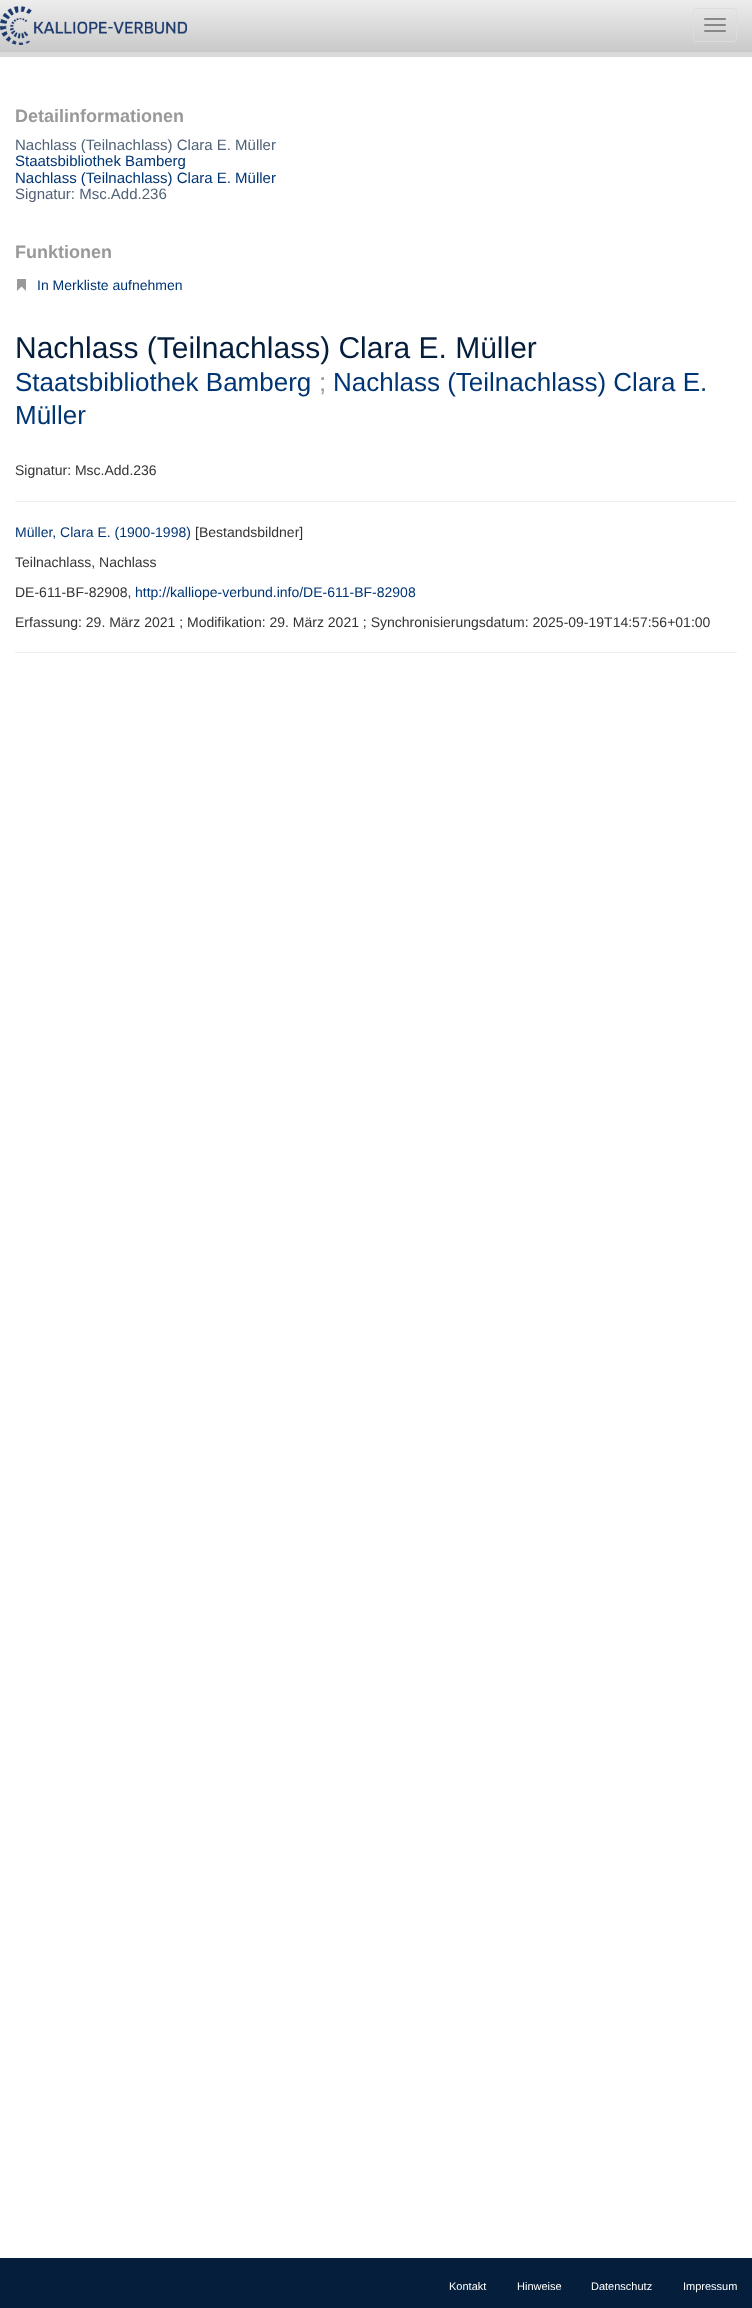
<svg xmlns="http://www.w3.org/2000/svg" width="752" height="2308">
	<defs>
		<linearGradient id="g1" gradientUnits="userSpaceOnUse" x1="376" y1="0" x2="376" y2="52"><stop offset="0" stop-color="#EDEDED" /><stop offset="1" stop-color="#C9C9C9" /></linearGradient>
	</defs>
	<rect width="100%" height="100%" fill="#FFFFFF" />
	<rect x="0" y="0" width="752" height="52" fill="url(#g1)" />
	<rect x="0" y="52" width="752" height="5" fill="#D9D9D9" />
	<image x="0" y="6" width="187" height="39" href="assets/img1.png" />
	<rect x="693.5" y="8.5" width="43" height="33" rx="3.5" fill="none" stroke="#DDDDDD" />
	<rect x="704" y="18" width="22" height="2" rx="1" fill="#888888" />
	<rect x="704" y="24" width="22" height="2" rx="1" fill="#888888" />
	<rect x="704" y="30" width="22" height="2" rx="1" fill="#888888" />
	<text x="15" y="122" font-family="Liberation Sans" font-size="18" font-weight="700" fill="#999999">Detailinformationen</text>
	<text x="15" y="150" font-family="Liberation Sans" font-size="15" fill="#506277">Nachlass (Teilnachlass) Clara E. Müller</text>
	<g font-family="Liberation Sans" font-size="15" fill="#003574">
		<text x="15" y="166">Staatsbibliothek Bamberg</text>
		<text x="15" y="183">Nachlass (Teilnachlass) Clara E. Müller</text>
	</g>
	<text x="15" y="199" font-family="Liberation Sans" font-size="15" fill="#506277">Signatur: Msc.Add.236</text>
	<text x="15" y="258" font-family="Liberation Sans" font-size="18" font-weight="700" fill="#999999">Funktionen</text>
	<image x="17" y="279" width="9" height="12" href="assets/img2.png" />
	<text x="37" y="290" font-family="Liberation Sans" font-size="14" fill="#003574">In Merkliste aufnehmen</text>
	<text x="15" y="358" font-family="Liberation Sans" font-size="30" fill="#051E3C">Nachlass (Teilnachlass) Clara E. Müller</text>
	<text x="15" y="391" font-family="Liberation Sans" font-size="26" fill="#003574">Staatsbibliothek Bamberg</text>
	<text x="319" y="391" font-family="Liberation Sans" font-size="26" fill="#999999">;</text>
	<g font-family="Liberation Sans" font-size="26" fill="#003574">
		<text x="333" y="391">Nachlass (Teilnachlass) Clara E.</text>
		<text x="15" y="424">Müller</text>
	</g>
	<text x="15" y="475" font-family="Liberation Sans" font-size="14" fill="#333333">Signatur: Msc.Add.236</text>
	<rect x="15" y="501" width="722" height="1" fill="#EEEEEE" />
	<text x="15" y="537" font-family="Liberation Sans" font-size="14" fill="#003574">Müller, Clara E. (1900-1998)</text>
	<g font-family="Liberation Sans" font-size="14" fill="#333333">
		<text x="195" y="537">[Bestandsbildner]</text>
		<text x="15" y="567">Teilnachlass, Nachlass</text>
		<text x="15" y="597">DE-611-BF-82908,</text>
	</g>
	<text x="135" y="597" font-family="Liberation Sans" font-size="14" fill="#003574">http://kalliope-verbund.info/DE-611-BF-82908</text>
	<text x="15" y="627" font-family="Liberation Sans" font-size="14" fill="#333333">Erfassung: 29. März 2021 ; Modifikation: 29. März 2021 ; Synchronisierungsdatum: 2025-09-19T14:57:56+01:00</text>
	<rect x="15" y="652" width="722" height="1" fill="#EEEEEE" />
	<rect x="0" y="2258" width="752" height="50" fill="#051E3C" />
	<g font-family="Liberation Sans" font-size="11" fill="#FFFFFF">
		<text x="449" y="2290">Kontakt</text>
		<text x="517" y="2290">Hinweise</text>
		<text x="591" y="2290">Datenschutz</text>
		<text x="683" y="2290">Impressum</text>
	</g>
</svg>
